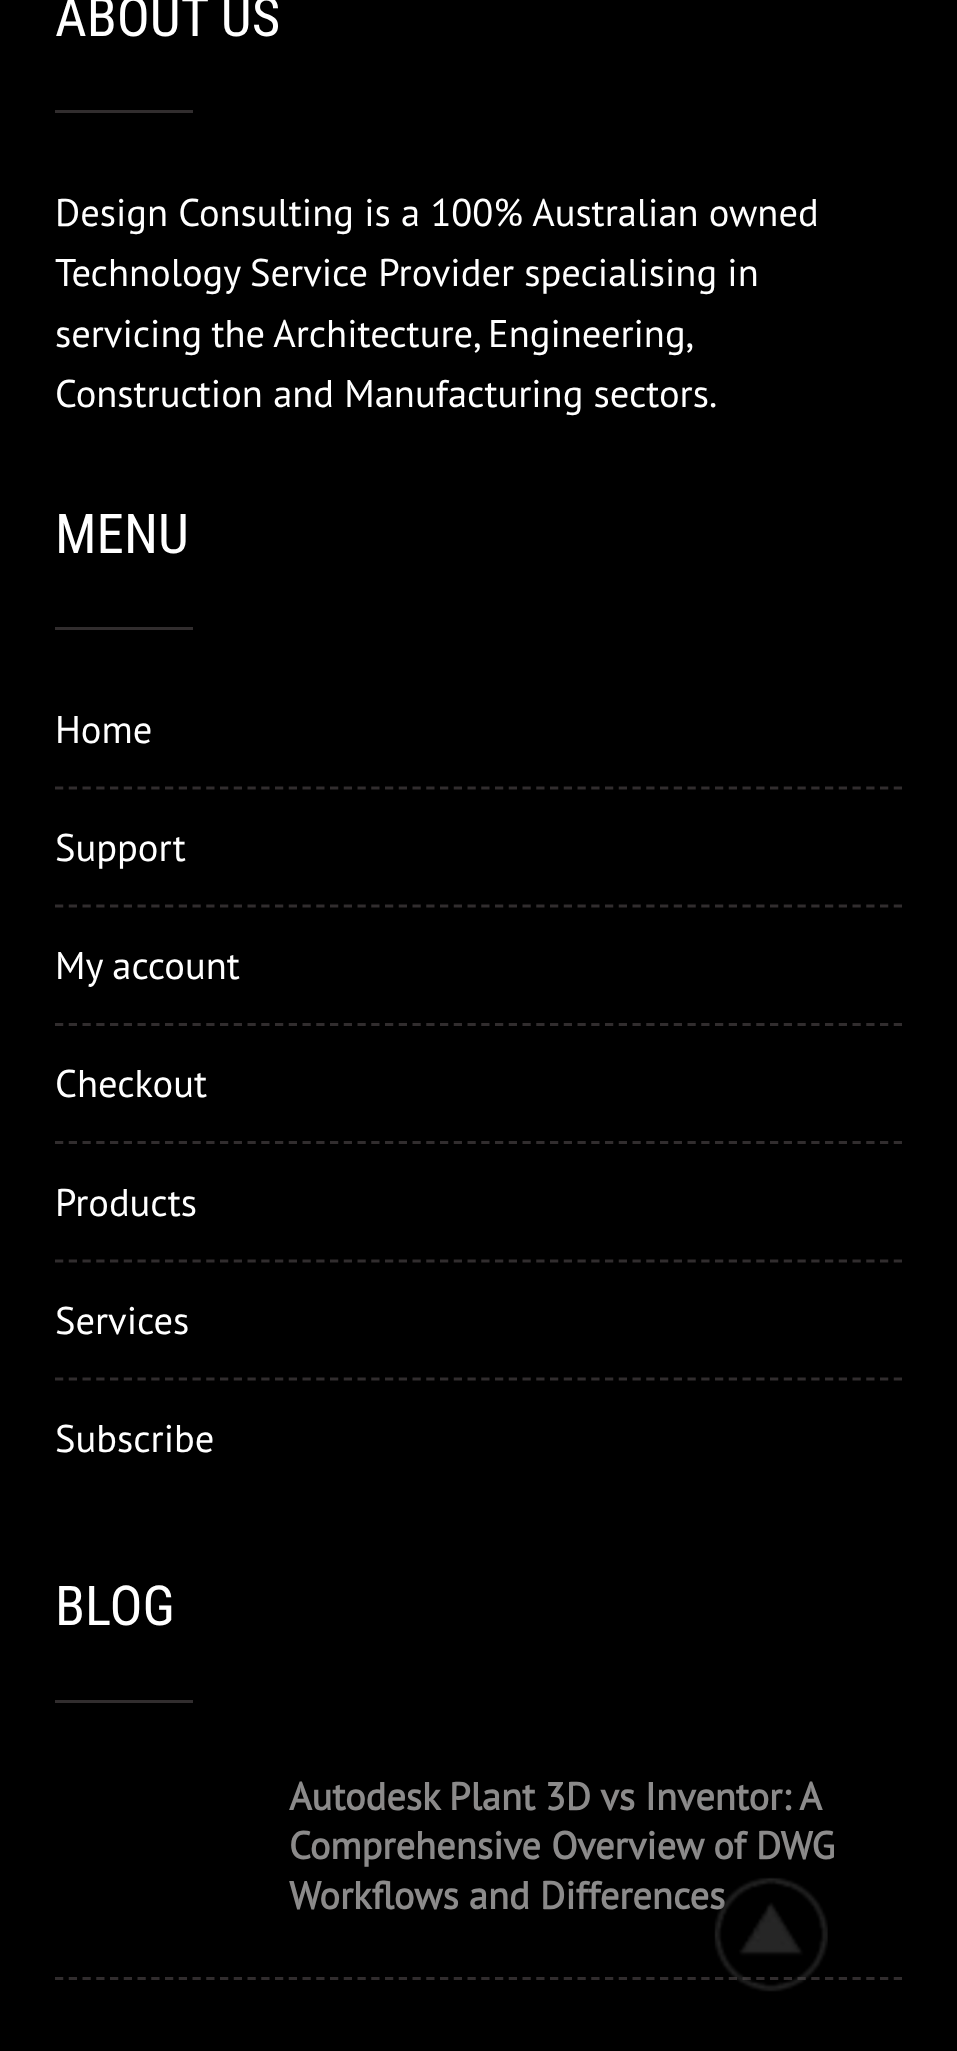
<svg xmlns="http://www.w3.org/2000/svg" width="957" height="2051">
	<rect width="100%" height="100%" fill="#000000" />
	<text x="55" y="36" font-family="Roboto Condensed" font-size="55" fill="#FFFFFF">ABOUT US</text>
	<rect x="55" y="110" width="138" height="3" fill="#312D2E" />
	<g font-family="PT Sans" font-size="38.5" fill="#FFFFFF">
		<text x="55" y="226">Design Consulting is a 100% Australian owned</text>
		<text x="55" y="286">Technology Service Provider specialising in</text>
		<text x="55" y="347" word-spacing="-1">servicing the Architecture, Engineering,</text>
		<text x="55" y="407">Construction and Manufacturing sectors.</text>
	</g>
	<text x="55" y="553" font-family="Roboto Condensed" font-size="55" fill="#FFFFFF">MENU</text>
	<rect x="55" y="627" width="138" height="3" fill="#312D2E" />
	<path d="M55 788H902" fill="none" stroke="#312D2E" stroke-width="2.8" stroke-dasharray="8.25 5.5" />
	<text x="55" y="743" font-family="PT Sans" font-size="38.5" fill="#FFFFFF">Home</text>
	<path d="M55 906H902" fill="none" stroke="#312D2E" stroke-width="2.8" stroke-dasharray="8.25 5.5" />
	<text x="55" y="861" font-family="PT Sans" font-size="38.5" fill="#FFFFFF">Support</text>
	<path d="M55 1024.5H902" fill="none" stroke="#312D2E" stroke-width="2.8" stroke-dasharray="8.25 5.5" />
	<text x="55" y="979" font-family="PT Sans" font-size="38.5" fill="#FFFFFF">My account</text>
	<path d="M55 1142.5H902" fill="none" stroke="#312D2E" stroke-width="2.8" stroke-dasharray="8.25 5.5" />
	<text x="55" y="1097" font-family="PT Sans" font-size="38.5" fill="#FFFFFF">Checkout</text>
	<path d="M55 1261H902" fill="none" stroke="#312D2E" stroke-width="2.8" stroke-dasharray="8.25 5.5" />
	<text x="55" y="1216" font-family="PT Sans" font-size="38.5" fill="#FFFFFF">Products</text>
	<path d="M55 1379H902" fill="none" stroke="#312D2E" stroke-width="2.8" stroke-dasharray="8.25 5.5" />
	<g font-family="PT Sans" font-size="38.5" fill="#FFFFFF">
		<text x="55" y="1334">Services</text>
		<text x="55" y="1452">Subscribe</text>
	</g>
	<text x="55" y="1625" font-family="Roboto Condensed" font-size="55" fill="#FFFFFF">BLOG</text>
	<rect x="55" y="1700" width="138" height="3" fill="#312D2E" />
	<path d="M55 1978.5H902" fill="none" stroke="#312D2E" stroke-width="2.8" stroke-dasharray="8.25 5.5" />
	<g font-family="PT Sans" font-size="38.5" font-weight="700" fill="#8B8A8A">
		<text x="289" y="1810" word-spacing="-0.5">Autodesk Plant 3D vs Inventor: A</text>
		<text x="289" y="1859">Comprehensive Overview of DWG</text>
		<text x="289" y="1909">Workflows and Differences</text>
	</g>
	<image x="714" y="1877" width="114" height="115" href="assets/img1.png" />
</svg>
